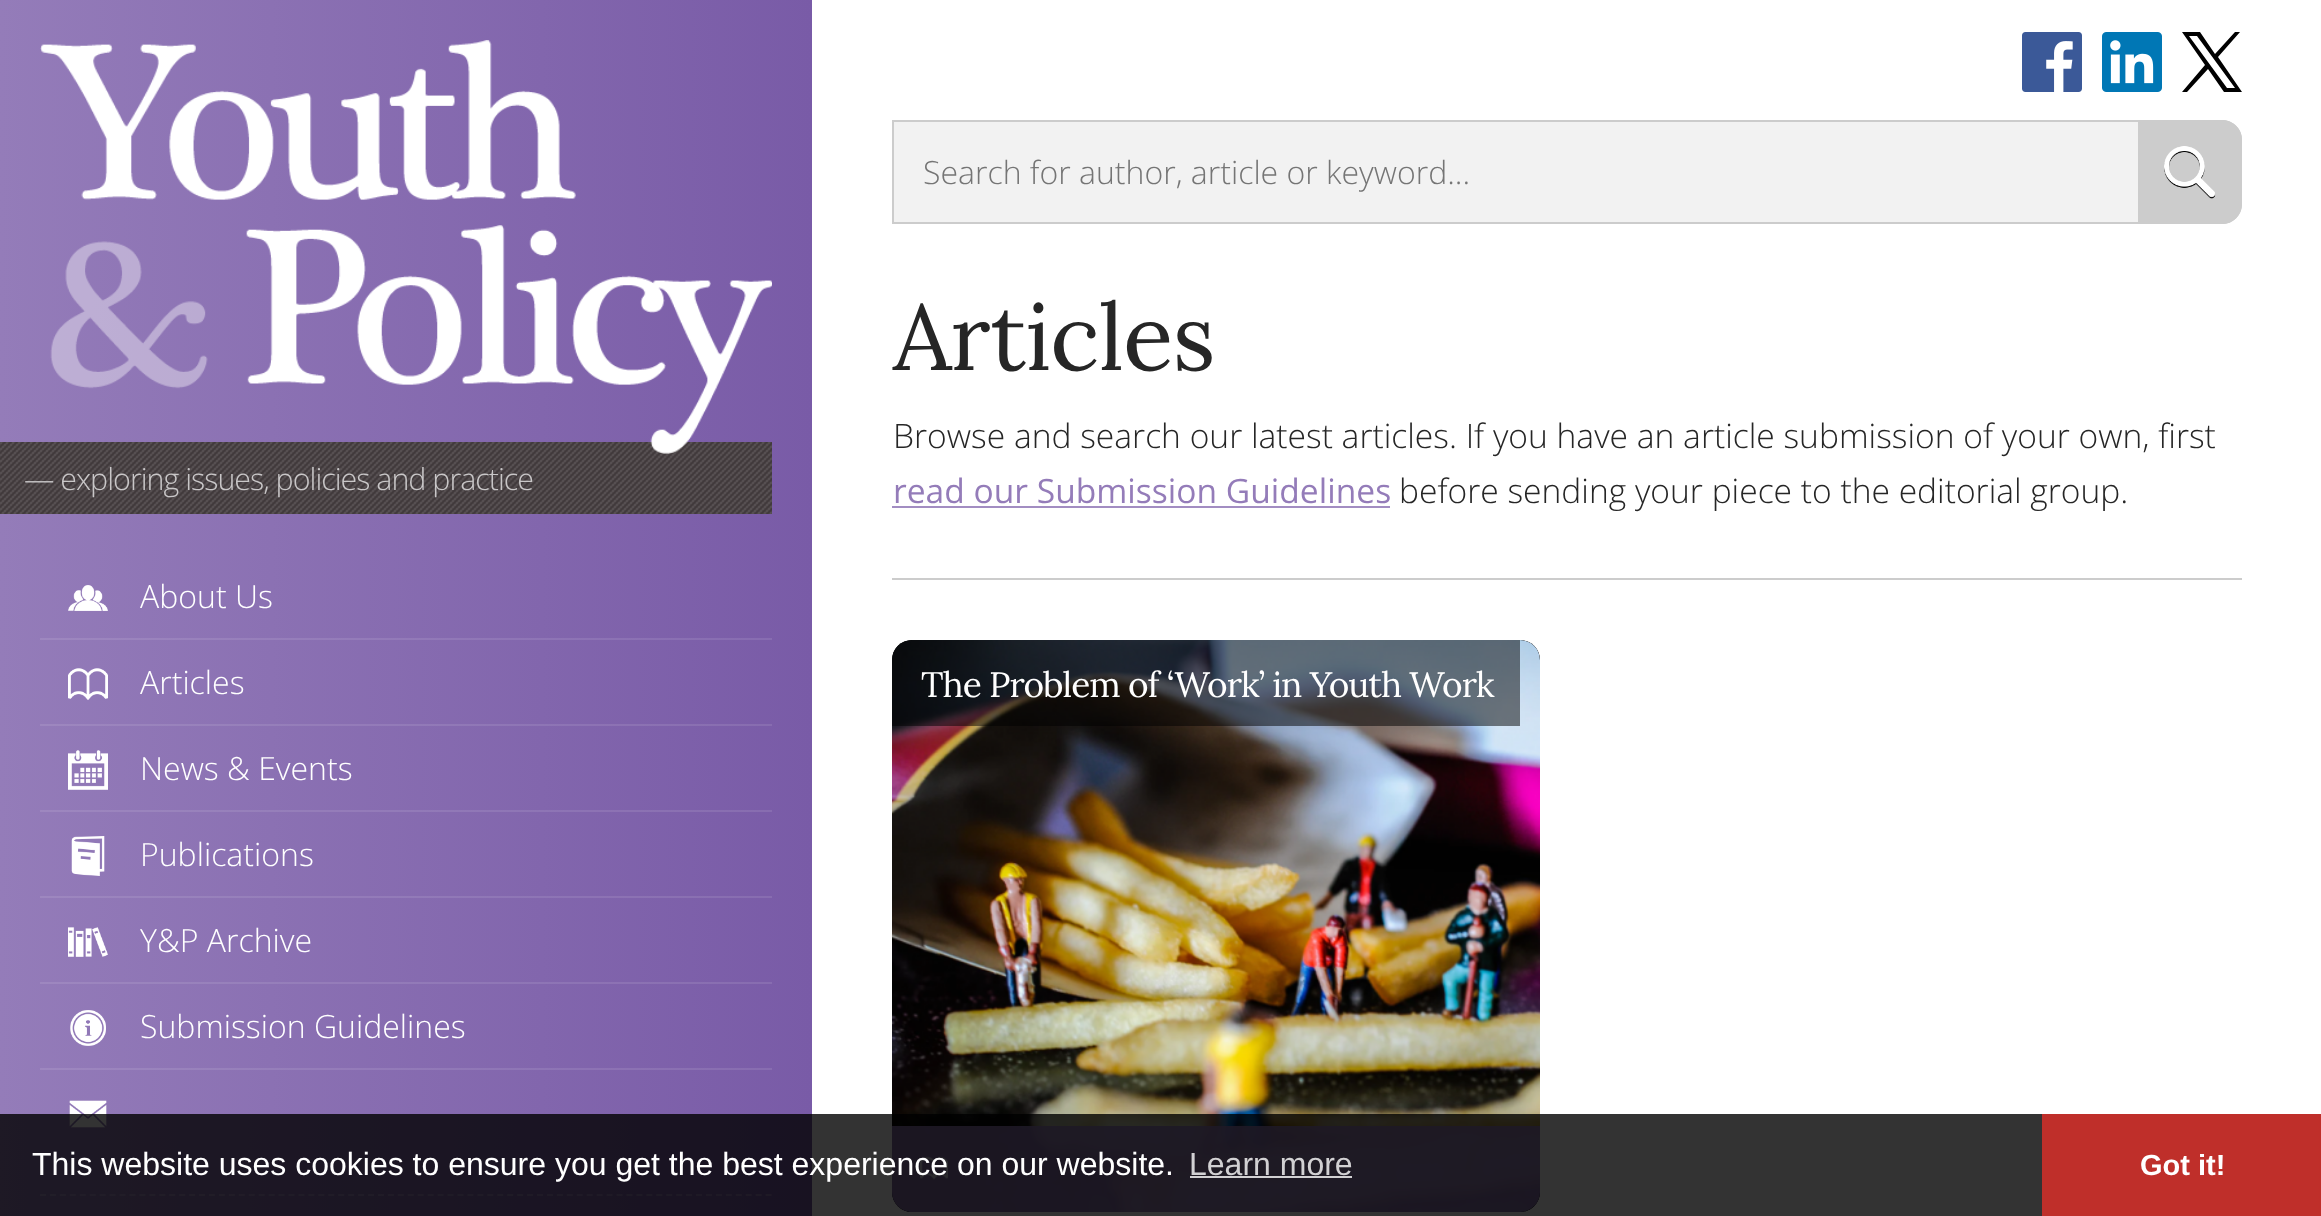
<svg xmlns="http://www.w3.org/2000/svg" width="2321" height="1216">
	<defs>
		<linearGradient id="g1" gradientUnits="userSpaceOnUse" x1="0" y1="1197" x2="812" y2="1197"><stop offset="0" stop-color="#947CB9" /><stop offset="1" stop-color="#795BA7" /></linearGradient>
		<linearGradient id="g2" gradientUnits="userSpaceOnUse" x1="0" y1="1197" x2="812" y2="1197"><stop offset="0" stop-color="#9F89C0" /><stop offset="1" stop-color="#866BB0" /></linearGradient>
	</defs>
	<rect width="100%" height="100%" fill="#FFFFFF" />
	<rect x="0" y="0" width="812" height="1216" fill="url(#g1)" />
	<rect x="40" y="638" width="732" height="2" fill="url(#g2)" />
	<rect x="0" y="442" width="772" height="72" fill="#3E3739" />
	<image x="0" y="442" width="772" height="72" href="assets/img2.png" />
	<image x="40" y="40" width="732" height="414" href="assets/img1.png" />
	<text x="24" y="490" font-family="Open Sans" font-size="30.4" font-weight="300" letter-spacing="-1" fill="#C9C7C8">— exploring issues, policies and practice</text>
	<image x="68" y="585" width="40" height="26" href="assets/img3.png" />
	<text x="140" y="608" font-family="Open Sans" font-size="32" font-weight="300" fill="#FFFFFF">About Us</text>
	<rect x="40" y="724" width="732" height="2" fill="#FFFFFF" fill-opacity="0.1" />
	<image x="68" y="668" width="40" height="32" href="assets/img4.png" />
	<text x="140" y="694" font-family="Open Sans" font-size="32" font-weight="300" fill="#FFFFFF">Articles</text>
	<rect x="40" y="810" width="732" height="2" fill="#FFFFFF" fill-opacity="0.1" />
	<image x="68" y="750" width="40" height="40" href="assets/img5.png" />
	<text x="140" y="780" font-family="Open Sans" font-size="32" font-weight="300" fill="#FFFFFF">News &amp; Events</text>
	<rect x="40" y="896" width="732" height="2" fill="#FFFFFF" fill-opacity="0.1" />
	<image x="71" y="836" width="34" height="40" href="assets/img6.png" />
	<text x="140" y="866" font-family="Open Sans" font-size="32" font-weight="300" fill="#FFFFFF">Publications</text>
	<rect x="40" y="982" width="732" height="2" fill="#FFFFFF" fill-opacity="0.1" />
	<image x="68" y="927" width="40" height="30" href="assets/img7.png" />
	<text x="140" y="952" font-family="Open Sans" font-size="32" font-weight="300" fill="#FFFFFF">Y&amp;P Archive</text>
	<rect x="40" y="1068" width="732" height="2" fill="#FFFFFF" fill-opacity="0.1" />
	<image x="70" y="1010" width="36" height="36" href="assets/img8.png" />
	<text x="140" y="1038" font-family="Open Sans" font-size="32" font-weight="300" fill="#FFFFFF">Submission Guidelines</text>
	<image x="69" y="1100" width="38" height="28" href="assets/img9.png" />
	<path d="M40 1195H772" fill="none" stroke="#FFFFFF" stroke-opacity="0.2" stroke-width="2" stroke-dasharray="6 3.94" />
	<image x="2022" y="32" width="60" height="60" href="assets/img10.png" />
	<image x="2102" y="32" width="60" height="60" href="assets/img11.png" />
	<path d="M2218 57L2240 32H2235L2215 54L2200 32H2182L2205 65L2182 92H2187L2208 69L2224 92H2242M2189 36H2197L2235 88H2227" fill="#000000" />
	<path d="M893 121H2222C2232.5 121 2241 129.5 2241 140V204C2241 214.5 2232.5 223 2222 223H893Z" fill="#F2F2F2" stroke="#CCCCCC" stroke-width="2" />
	<text x="923" y="184" font-family="Open Sans" font-size="32" font-weight="300" fill="#757575">Search for author, article or keyword...</text>
	<path d="M2138 120H2222C2233 120 2242 129 2242 140V204C2242 215 2233 224 2222 224H2138Z" fill="#CCCCCC" />
	<image x="2164" y="146" width="52" height="53" href="assets/img12.png" />
	<text x="893" y="370" font-family="Lora" font-size="93" letter-spacing="-1" fill="#262626">Articles</text>
	<text x="893" y="448" font-family="Open Sans" font-size="33.6" font-weight="300" fill="#262626">Browse and search our latest articles. If you have an article submission of your own, first</text>
	<text x="893" y="503" font-family="Open Sans" font-size="33.6" fill="#947CB9">read our Submission Guidelines</text>
	<rect x="892" y="506" width="498" height="2" fill="#A28DC2" />
	<text x="1399" y="503" font-family="Open Sans" font-size="33.6" font-weight="300" fill="#262626">before sending your piece to the editorial group.</text>
	<rect x="892" y="578" width="1350" height="2" fill="#CCCCCC" />
	<rect x="892" y="640" width="648" height="572" rx="20" fill="#000000" />
	<image x="892" y="640" width="648" height="572" href="assets/img13.png" />
	<path d="M912 640H1520V726H892V660C892 649 901 640 912 640Z" fill="#000000" fill-opacity="0.5" />
	<text x="921" y="697" font-family="Lora" font-size="35.25" letter-spacing="-1" fill="#FFFFFF">The Problem of ‘Work’ in Youth Work</text>
	<path d="M892 1126H1540V1192C1540 1203 1531 1212 1520 1212H912C901 1212 892 1203 892 1192Z" fill="#947CB9" fill-opacity="0.9" />
	<image x="920" y="1156" width="28" height="24" href="assets/img14.png" />
	<rect x="0" y="1114" width="2042" height="102" fill="#000000" fill-opacity="0.8" />
	<text x="32" y="1175" font-family="Liberation Sans" font-size="32" fill="#FFFFFF">This website uses cookies to ensure you get the best experience on our website.</text>
	<text x="1189" y="1175" font-family="Liberation Sans" font-size="32" fill="#D2D1D3">Learn more</text>
	<rect x="1190" y="1176" width="162" height="2" fill="#D2D1D3" />
	<rect x="2042" y="1114" width="279" height="102" fill="#BF2F2A" />
	<text x="2140" y="1175" font-family="Liberation Sans" font-size="29" font-weight="700" fill="#FFFFFF">Got it!</text>
</svg>
